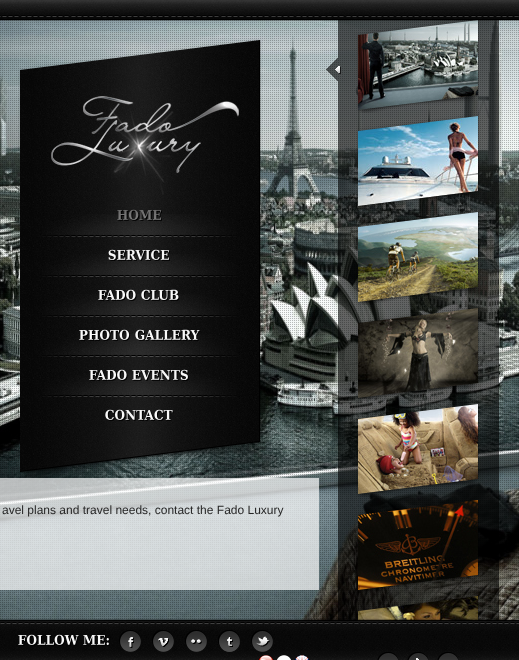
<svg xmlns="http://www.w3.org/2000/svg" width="519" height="660">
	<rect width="100%" height="100%" fill="#FFFFFF" />
	<image x="0" y="20" width="519" height="601" href="assets/img21.png" />
	<image x="0" y="20" width="519" height="601" href="assets/img20.png" />
	<rect x="338" y="20" width="161" height="601" fill="#000000" fill-opacity="0.6" />
	<image x="358" y="20" width="120" height="90" href="assets/img24.png" />
	<image x="357" y="20" width="122" height="93" href="assets/img23.png" />
	<image x="0" y="0" width="519" height="22" href="assets/img1.png" />
	<image x="19" y="39" width="243" height="33" href="assets/img2.png" />
	<image x="18" y="72" width="244" height="365" href="assets/img3.png" />
	<image x="51" y="96" width="188" height="99" href="assets/img4.png" />
	<image x="42" y="214" width="195" height="23" href="assets/img5.png" />
	<image x="117" y="209" width="45" height="12" href="assets/img6.png" />
	<image x="42" y="254" width="195" height="23" href="assets/img7.png" />
	<image x="108" y="249" width="62" height="12" href="assets/img8.png" />
	<image x="42" y="294" width="195" height="23" href="assets/img9.png" />
	<image x="98" y="289" width="39" height="12" href="assets/img10.png" />
	<image x="141" y="289" width="39" height="12" href="assets/img11.png" />
	<image x="42" y="334" width="195" height="23" href="assets/img12.png" />
	<image x="79" y="329" width="51" height="12" href="assets/img13.png" />
	<image x="135" y="329" width="66" height="12" href="assets/img14.png" />
	<image x="42" y="374" width="195" height="23" href="assets/img15.png" />
	<image x="89" y="369" width="39" height="12" href="assets/img16.png" />
	<image x="132" y="369" width="57" height="12" href="assets/img17.png" />
	<image x="105" y="409" width="69" height="12" href="assets/img18.png" />
	<image x="20" y="437" width="241" height="45" href="assets/img19.png" />
	<rect x="0" y="478" width="319" height="112" fill="#FFFFFF" fill-opacity="0.7" />
	<text x="2" y="514" font-family="Liberation Sans" font-size="12" fill="#272727">avel plans and travel needs, contact the Fado Luxury</text>
	<image x="326" y="57" width="15" height="25" href="assets/img22.png" />
	<image x="358" y="116" width="120" height="90" href="assets/img26.png" />
	<image x="357" y="115" width="123" height="94" href="assets/img25.png" />
	<image x="358" y="212" width="120" height="90" href="assets/img28.png" />
	<image x="356" y="211" width="123" height="94" href="assets/img27.png" />
	<image x="358" y="308" width="120" height="90" href="assets/img30.png" />
	<image x="356" y="308" width="124" height="93" href="assets/img29.png" />
	<image x="358" y="404" width="120" height="90" href="assets/img32.png" />
	<image x="356" y="404" width="124" height="93" href="assets/img31.png" />
	<image x="358" y="500" width="120" height="90" href="assets/img33.png" />
	<image x="357" y="509" width="122" height="83" href="assets/img34.png" />
	<image x="358" y="596" width="120" height="25" href="assets/img35.png" />
	<image x="361" y="596" width="118" height="25" href="assets/img36.png" />
	<image x="0" y="618" width="519" height="42" href="assets/img37.png" />
	<image x="18" y="634" width="61" height="12" href="assets/img38.png" />
	<image x="83" y="635" width="27" height="11" href="assets/img39.png" />
	<image x="119" y="630" width="22" height="22" href="assets/img40.png" />
	<image x="152" y="630" width="22" height="22" href="assets/img41.png" />
	<image x="185" y="630" width="22" height="22" href="assets/img42.png" />
	<image x="218" y="630" width="22" height="22" href="assets/img43.png" />
	<image x="251" y="630" width="22" height="22" href="assets/img44.png" />
	<image x="258" y="655" width="16" height="5" href="assets/img45.png" />
	<image x="276" y="655" width="16" height="5" href="assets/img46.png" />
	<image x="294" y="655" width="16" height="5" href="assets/img47.png" />
	<image x="377" y="652" width="22" height="8" href="assets/img48.png" />
	<image x="407" y="652" width="21" height="8" href="assets/img49.png" />
	<image x="437" y="652" width="22" height="8" href="assets/img50.png" />
</svg>
